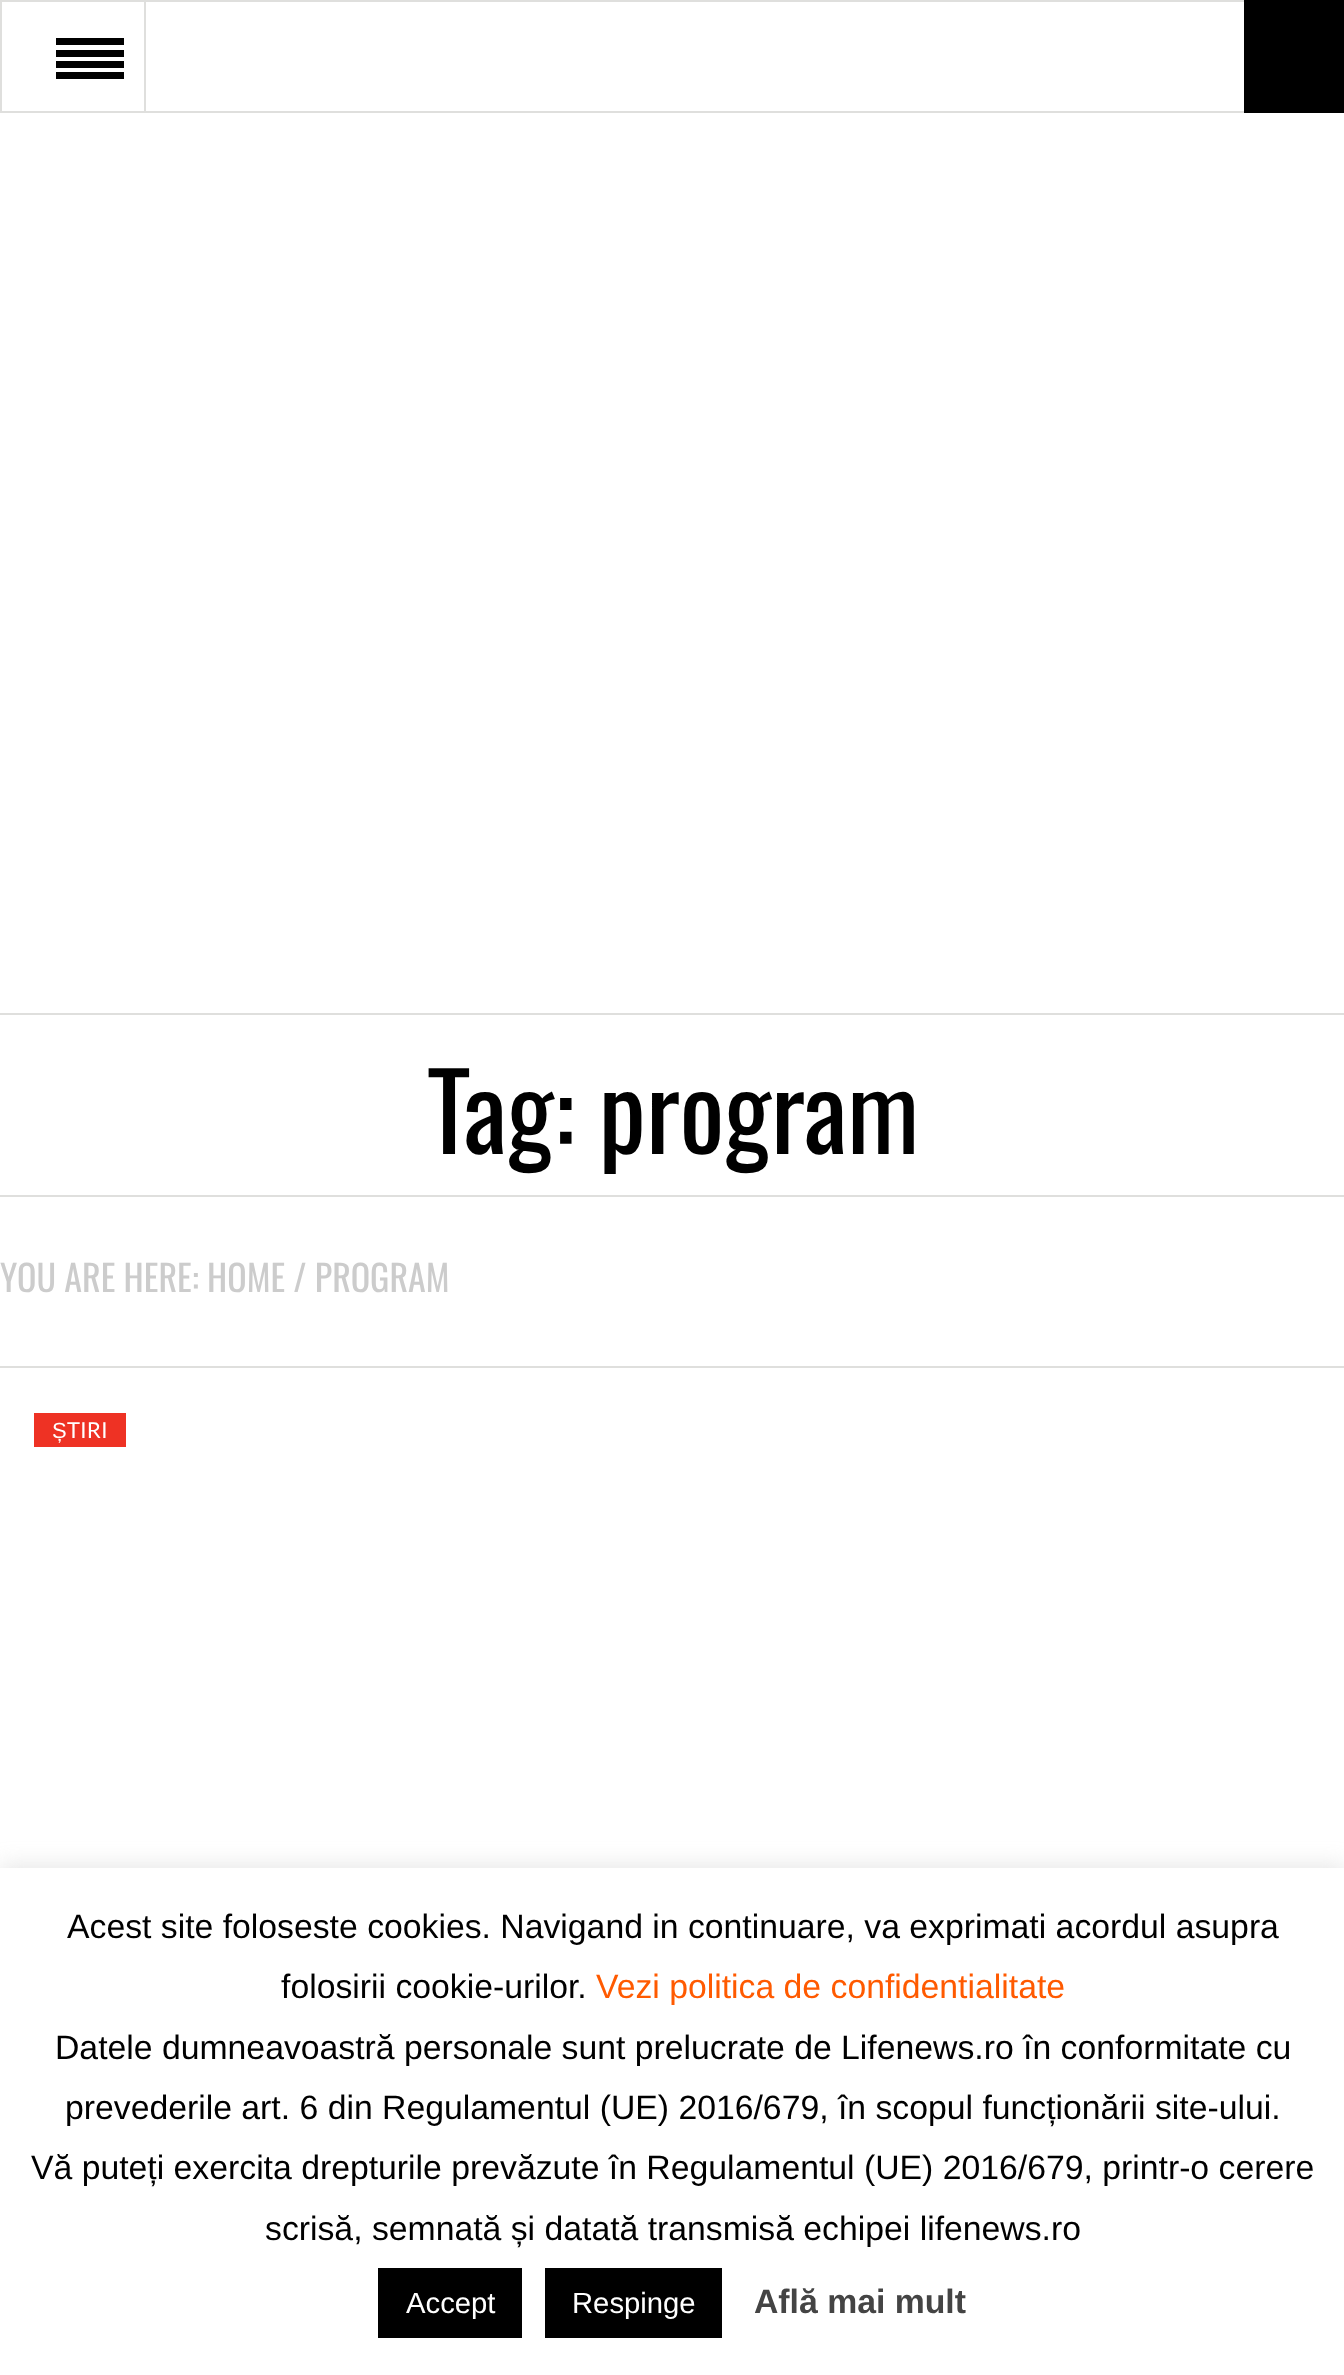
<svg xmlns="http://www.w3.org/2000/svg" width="1344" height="2375">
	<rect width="100%" height="100%" fill="#FFFFFF" />
	<rect x="1" y="1" width="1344" height="111" fill="none" stroke="#DFDFDD" stroke-width="2" />
	<rect x="0" y="1013" width="1344" height="2" fill="#DFDFDD" />
	<rect x="144" y="0" width="2" height="113" fill="#DFDFDD" />
	<rect x="56" y="72" width="68" height="7" fill="#000000" />
	<rect x="56" y="61" width="68" height="7" fill="#000000" />
	<rect x="56" y="50" width="68" height="7" fill="#000000" />
	<rect x="56" y="38" width="68" height="7" fill="#000000" />
	<rect x="1244" y="0" width="100" height="113" fill="#000000" />
	<rect x="0" y="1366" width="1344" height="2" fill="#DFDFDD" />
	<rect x="0" y="1195" width="1344" height="2" fill="#DFDFDD" />
	<text x="427" y="1154" font-family="Oswald" font-size="105.75" fill="#000000">Tag: program</text>
	<text x="0" y="1292" font-family="Oswald" font-size="36" fill="#CCCCCC">YOU ARE HERE: HOME / PROGRAM</text>
	<rect x="34" y="1413" width="92" height="34" fill="#EE3224" />
	<text x="52" y="1438" font-family="Liberation Sans" font-size="22" fill="#FFFFFF">Ș</text>
	<text x="67" y="1438" font-family="Lato" font-size="22" fill="#FFFFFF">TIRI</text>
	<rect x="0" y="1865" width="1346" height="509" fill="#ACABAB" fill-opacity="0.3" filter="blur(11px)" />
	<rect x="0" y="1868" width="1344" height="507" fill="#FFFFFF" />
	<g font-family="Liberation Sans" font-size="33.75" fill="#000000">
		<text x="67" y="1938">Acest site foloseste cookies. Navigand in continuare, va exprimati acordul asupra</text>
		<text x="281" y="1998">folosirii cookie-urilor.</text>
	</g>
	<text x="596" y="1998" font-family="Liberation Sans" font-size="33.75" fill="#FF5A00">Vezi politica de confidentialitate</text>
	<g font-family="Liberation Sans" font-size="33.75" fill="#000000">
		<text x="55" y="2059">Datele dumneavoastră personale sunt prelucrate de Lifenews.ro în conformitate cu</text>
		<text x="65" y="2119">prevederile art. 6 din Regulamentul (UE) 2016/679, în scopul funcționării site-ului.</text>
		<text x="31" y="2179">Vă puteți exercita drepturile prevăzute în Regulamentul (UE) 2016/679, printr-o cerere</text>
		<text x="265" y="2240">scrisă, semnată și datată transmisă echipei lifenews.ro</text>
	</g>
	<rect x="378" y="2268" width="144" height="70" fill="#000000" />
	<text x="406" y="2313" font-family="Liberation Sans" font-size="29.25" fill="#FFFFFF">Accept</text>
	<rect x="545" y="2268" width="177" height="70" fill="#000000" />
	<text x="572" y="2313" font-family="Liberation Sans" font-size="29.25" fill="#FFFFFF">Respinge</text>
	<text x="754" y="2313" font-family="Liberation Sans" font-size="33.75" font-weight="700" fill="#444444">Află mai mult</text>
</svg>
